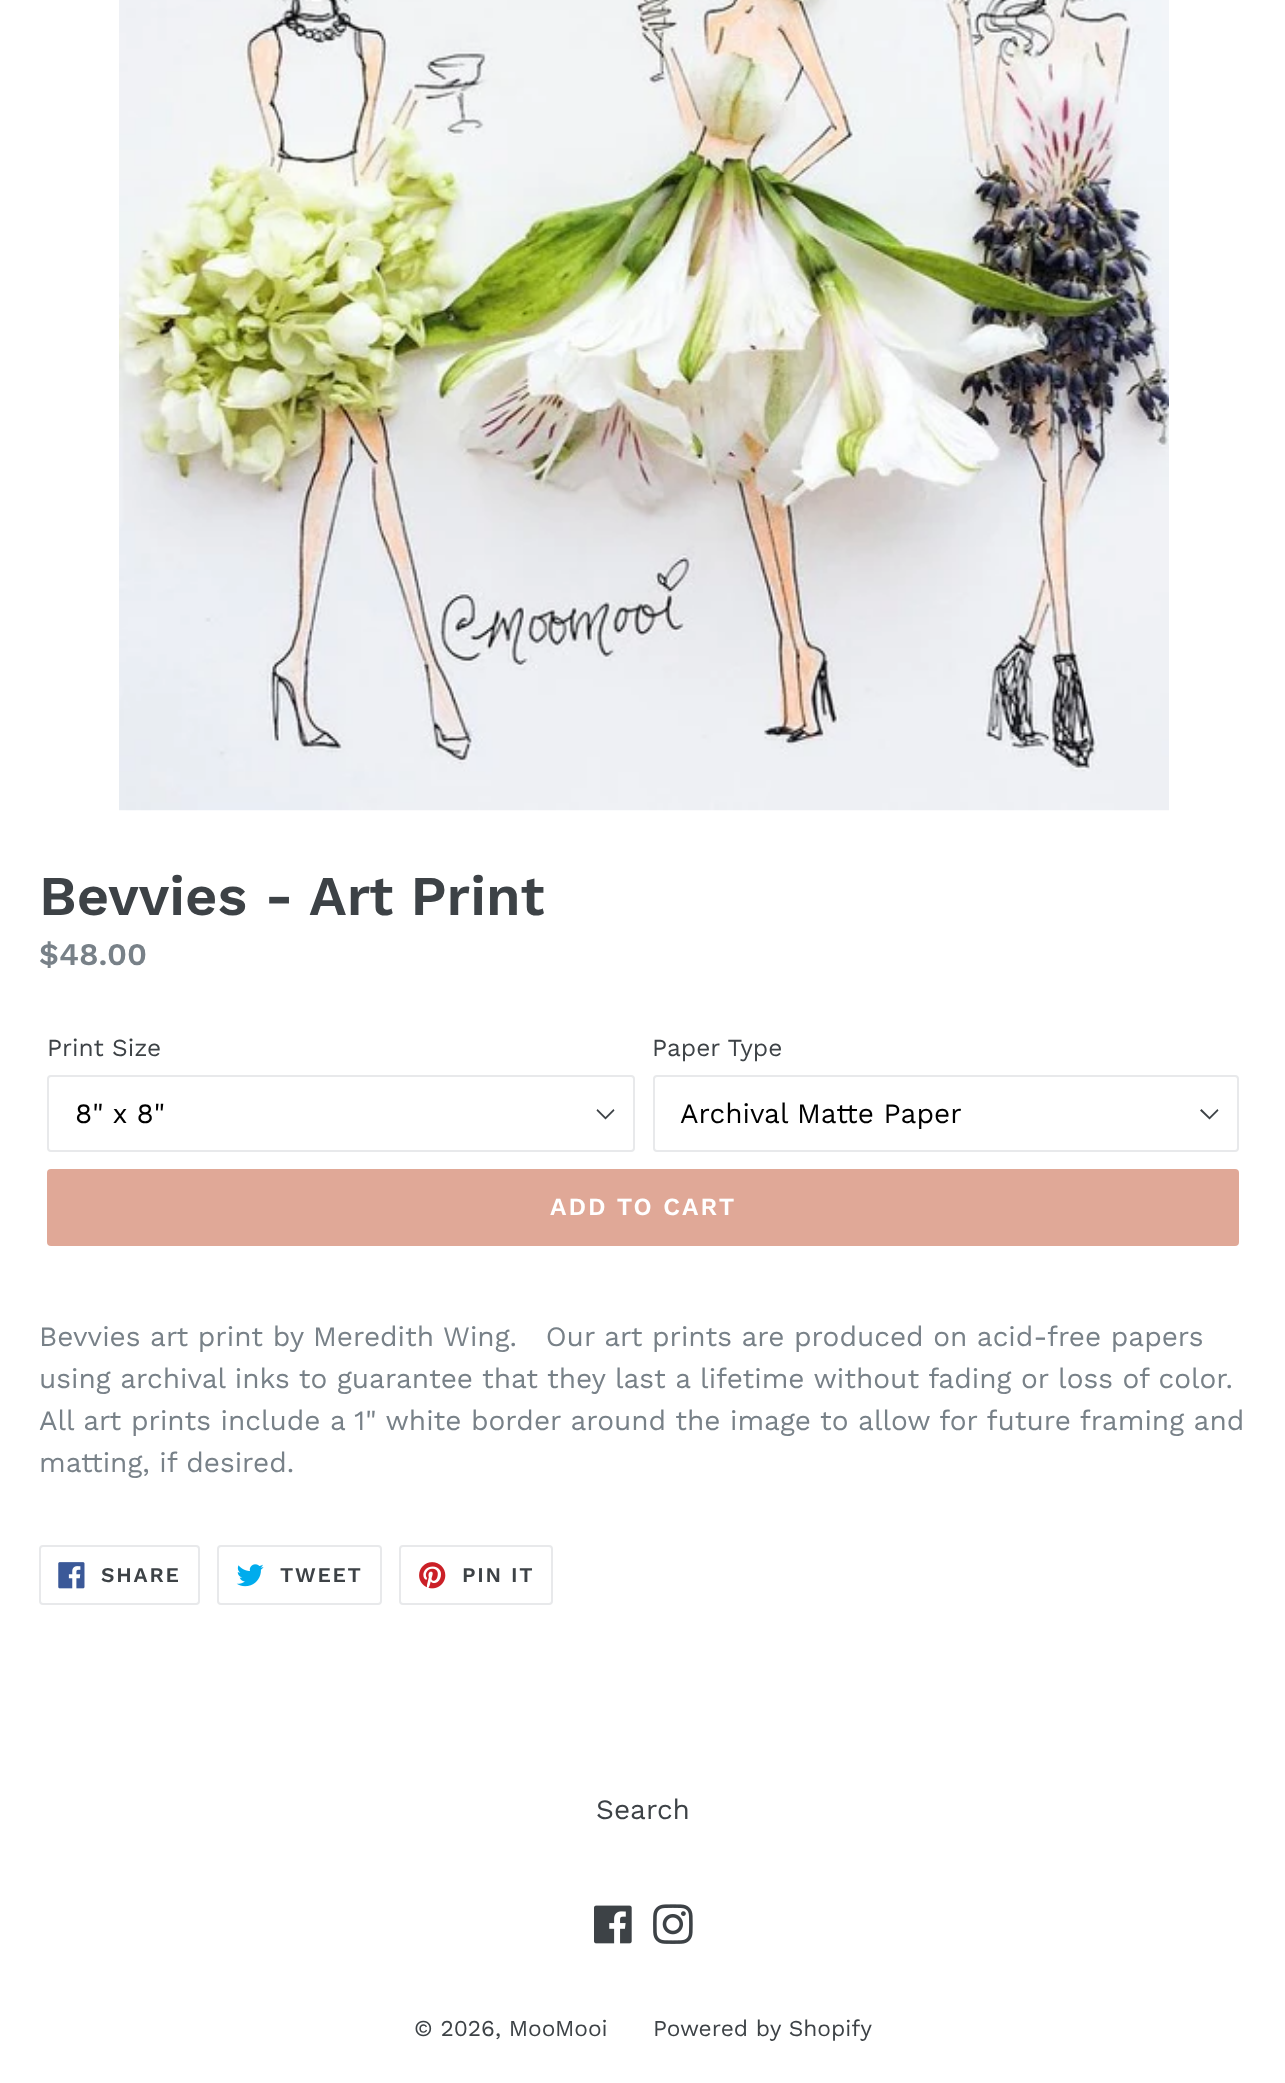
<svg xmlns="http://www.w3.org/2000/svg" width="1285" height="2083">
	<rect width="100%" height="100%" fill="#FFFFFF" />
	<image x="119" y="0" width="1050" height="811" href="assets/img1.png" />
	<text x="39" y="915" font-family="Work Sans" font-size="56" font-weight="600" fill="#3D4246">Bevvies - Art Print</text>
	<text x="39" y="965" font-family="Work Sans" font-size="31.5" font-weight="600" fill="#788188">$48.00</text>
	<text x="47" y="1056" font-family="Work Sans" font-size="24.5" fill="#3D4246">Print Size</text>
	<path d="M605.5 1119.5L596.5 1110.5L597.5 1109L605.5 1117L613.5 1109L614.5 1110.5Z" fill="#3D4246" />
	<rect x="48" y="1076" width="586" height="75" rx="3" fill="none" stroke="#E8E9EB" stroke-width="2" />
	<text x="75" y="1123" font-family="Work Sans" font-size="28" fill="#000000">8" x 8"</text>
	<text x="652" y="1056" font-family="Work Sans" font-size="24.5" fill="#3D4246">Paper Type</text>
	<path d="M1209.5 1119.5L1200 1110.5L1201.5 1109L1209.5 1117L1217.5 1109L1218.5 1110.5Z" fill="#3D4246" />
	<rect x="654" y="1076" width="584" height="75" rx="3" fill="none" stroke="#E8E9EB" stroke-width="2" />
	<text x="680" y="1123" font-family="Work Sans" font-size="28" fill="#000000">Archival Matte Paper</text>
	<rect x="47" y="1169" width="1192" height="77" rx="4" fill="#E0A897" />
	<text x="550" y="1215" font-family="Work Sans" font-size="24.5" font-weight="600" letter-spacing="2" fill="#FFFFFF">ADD TO CART</text>
	<g font-family="Work Sans" font-size="28" fill="#788188">
		<text x="39" y="1346" xml:space="preserve">Bevvies art print by Meredith Wing.   Our art prints are produced on acid-free papers</text>
		<text x="39" y="1388">using archival inks to guarantee that they last a lifetime without fading or loss of color.</text>
		<text x="39" y="1430">All art prints include a 1" white border around the image to allow for future framing and</text>
		<text x="39" y="1472">matting, if desired.</text>
	</g>
	<rect x="40" y="1546" width="159" height="58" rx="3" fill="none" stroke="#E8E9EB" stroke-width="2" />
	<image x="58" y="1562" width="27" height="27" href="assets/img2.png" />
	<text x="101" y="1582" font-family="Work Sans" font-size="21" font-weight="600" letter-spacing="1.75" fill="#3D4246">SHARE</text>
	<rect x="218" y="1546" width="163" height="58" rx="3" fill="none" stroke="#E8E9EB" stroke-width="2" />
	<image x="236" y="1564" width="28" height="23" href="assets/img3.png" />
	<text x="280" y="1582" font-family="Work Sans" font-size="21" font-weight="600" letter-spacing="1.75" fill="#3D4246">TWEET</text>
	<rect x="400" y="1546" width="152" height="58" rx="3" fill="none" stroke="#E8E9EB" stroke-width="2" />
	<image x="419" y="1562" width="27" height="27" href="assets/img4.png" />
	<text x="462" y="1582" font-family="Work Sans" font-size="21" font-weight="600" letter-spacing="1.75" fill="#3D4246">PIN IT</text>
	<text x="596" y="1819" font-family="Work Sans" font-size="28" fill="#3D4246">Search</text>
	<image x="594" y="1905" width="38" height="39" href="assets/img5.png" />
	<image x="653" y="1904" width="40" height="40" href="assets/img6.png" />
	<g font-family="Work Sans" font-size="22.75" fill="#3D4246">
		<text x="414" y="2036">© 2026, MooMooi</text>
		<text x="653" y="2036">Powered by Shopify</text>
	</g>
</svg>
